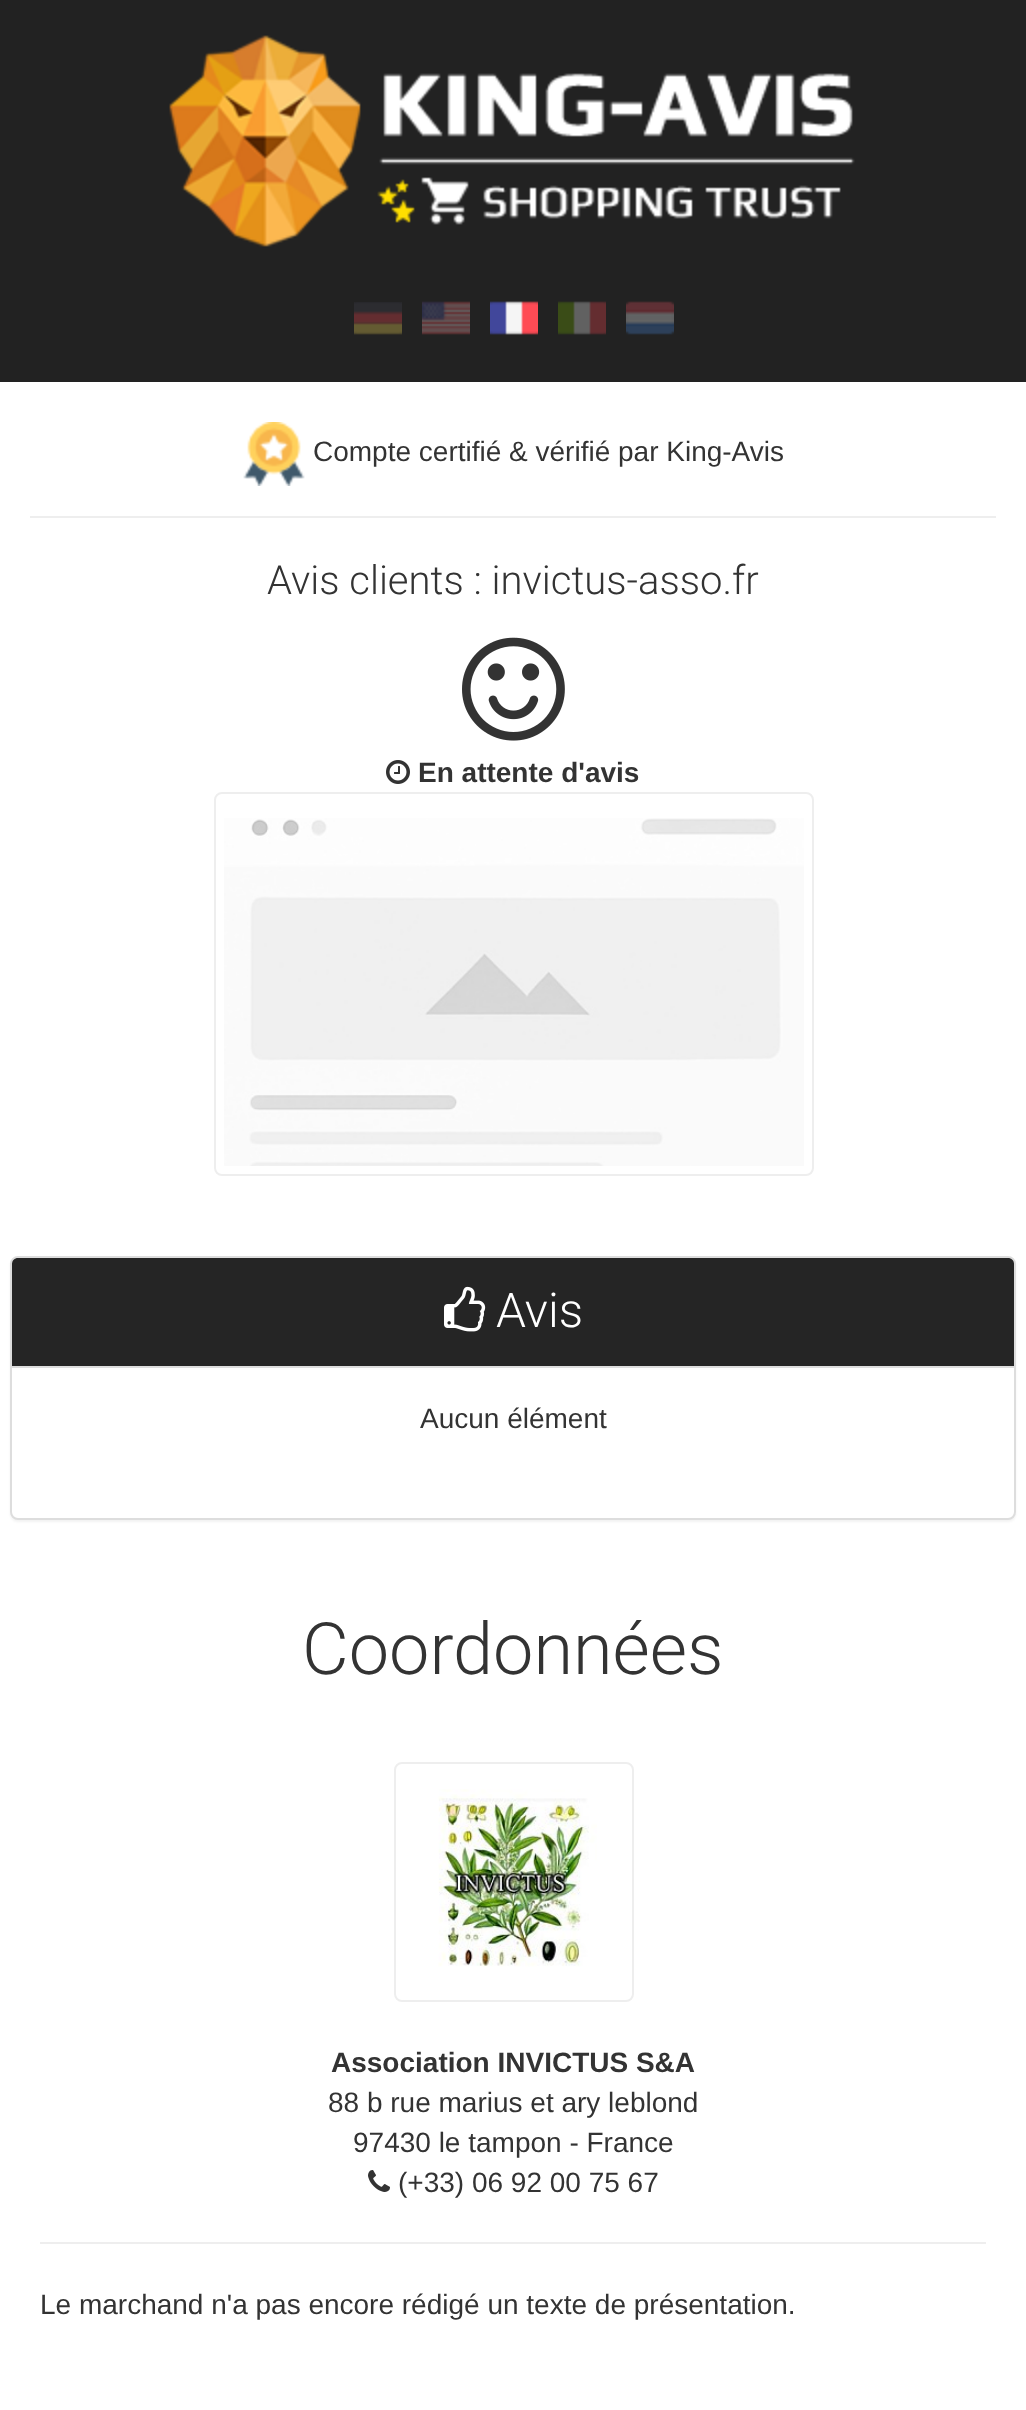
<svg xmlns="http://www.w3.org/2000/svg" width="1026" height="2410">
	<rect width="100%" height="100%" fill="#FFFFFF" />
	<rect x="0" y="0" width="1026" height="382" fill="#222222" />
	<image x="169" y="35" width="686" height="212" href="assets/img1.png" />
	<image x="354" y="302" width="48" height="33" href="assets/img2.png" />
	<image x="422" y="301" width="48" height="34" href="assets/img3.png" />
	<image x="490" y="301" width="48" height="34" href="assets/img4.png" />
	<image x="558" y="301" width="48" height="34" href="assets/img5.png" />
	<image x="626" y="301" width="48" height="34" href="assets/img6.png" />
	<rect x="30" y="516" width="966" height="2" fill="#EEEEEE" />
	<image x="243" y="422" width="62" height="64" href="assets/img7.png" />
	<text x="313" y="461" font-family="Liberation Sans" font-size="28" fill="#333333">Compte certifié &amp; vérifié par King-Avis</text>
	<text x="267" y="594" font-family="Roboto" font-size="40" font-weight="300" fill="#333333">Avis clients : invictus-asso.fr</text>
	<image x="462" y="637" width="103" height="104" href="assets/img8.png" />
	<image x="386" y="760" width="24" height="24" href="assets/img9.png" />
	<text x="418" y="782" font-family="Liberation Sans" font-size="28" font-weight="700" fill="#333333">En attente d'avis</text>
	<rect x="215" y="793" width="598" height="382" rx="7" fill="none" stroke="#EEEEEE" stroke-width="2" />
	<image x="224" y="818" width="580" height="348" href="assets/img10.png" />
	<rect x="10" y="1258" width="1006" height="264" rx="8" fill="#000000" fill-opacity="0.05" filter="blur(1px)" />
	<rect x="11" y="1257" width="1004" height="262" rx="7" fill="#FFFFFF" stroke="#DDDDDD" stroke-width="2" />
	<path d="M18 1258H1008C1011.5 1258 1014 1260.5 1014 1264V1368H12V1264C12 1260.5 14.5 1258 18 1258Z" fill="#252525" />
	<rect x="12" y="1366" width="1002" height="2" fill="#DDDDDD" />
	<image x="444" y="1286" width="42" height="46" href="assets/img11.png" />
	<text x="496" y="1327" font-family="Roboto" font-size="48" font-weight="300" fill="#FFFFFF">Avis</text>
	<text x="420" y="1428" font-family="Liberation Sans" font-size="28" fill="#333333">Aucun élément</text>
	<text x="302" y="1674" font-family="Roboto" font-size="72" font-weight="300" fill="#333333">Coordonnées</text>
	<rect x="395" y="1763" width="238" height="238" rx="7" fill="none" stroke="#EEEEEE" stroke-width="2" />
	<image x="438" y="1789" width="159" height="178" href="assets/img12.png" />
	<rect x="40" y="2242" width="946" height="2" fill="#EEEEEE" />
	<text x="331" y="2072" font-family="Liberation Sans" font-size="28" font-weight="700" fill="#333333">Association INVICTUS S&amp;A</text>
	<g font-family="Liberation Sans" font-size="28" fill="#333333">
		<text x="328" y="2112">88 b rue marius et ary leblond</text>
		<text x="353" y="2152">97430 le tampon - France</text>
	</g>
	<image x="368" y="2170" width="22" height="22" href="assets/img13.png" />
	<g font-family="Liberation Sans" font-size="28" fill="#333333">
		<text x="398" y="2192">(+33) 06 92 00 75 67</text>
		<text x="40" y="2314">Le marchand n'a pas encore rédigé un texte de présentation.</text>
	</g>
</svg>
